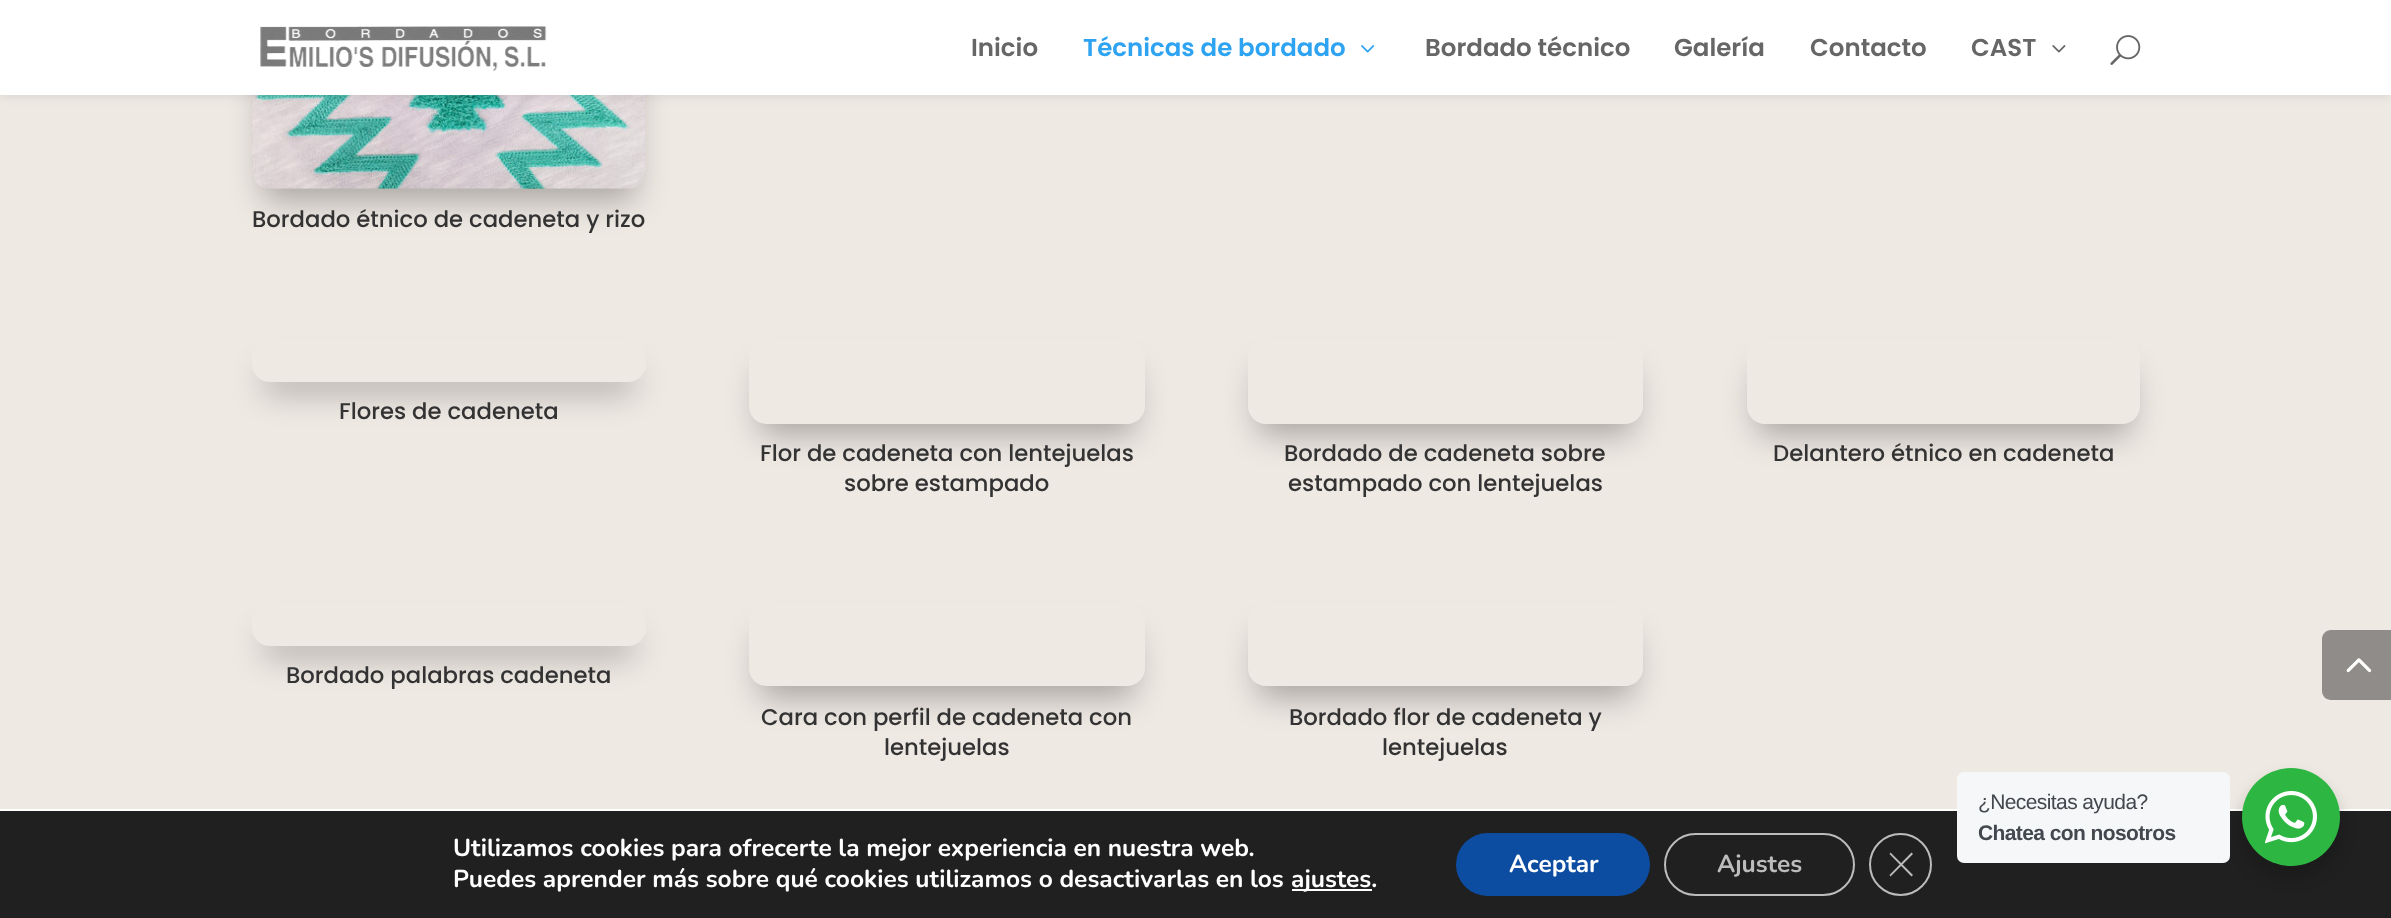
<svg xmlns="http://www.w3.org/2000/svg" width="2391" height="918">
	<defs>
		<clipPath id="clip1"><path d="M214 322H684V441H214ZM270 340H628C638 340 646 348 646 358V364C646 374 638 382 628 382H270C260 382 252 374 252 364V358C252 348 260 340 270 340Z" clip-rule="evenodd" /></clipPath>
		<clipPath id="clip2"><path d="M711 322H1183V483H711ZM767 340H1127C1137 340 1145 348 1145 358V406C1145 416 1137 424 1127 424H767C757 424 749 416 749 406V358C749 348 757 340 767 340Z" clip-rule="evenodd" /></clipPath>
		<clipPath id="clip3"><path d="M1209 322H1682V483H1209ZM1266 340H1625C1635 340 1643 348 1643 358V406C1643 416 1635 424 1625 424H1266C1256 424 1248 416 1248 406V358C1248 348 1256 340 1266 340Z" clip-rule="evenodd" /></clipPath>
		<clipPath id="clip4"><path d="M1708 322H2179V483H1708ZM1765 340H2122C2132 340 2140 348 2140 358V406C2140 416 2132 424 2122 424H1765C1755 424 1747 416 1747 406V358C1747 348 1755 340 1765 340Z" clip-rule="evenodd" /></clipPath>
		<clipPath id="clip5"><path d="M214 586H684V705H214ZM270 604H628C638 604 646 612 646 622V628C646 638 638 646 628 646H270C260 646 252 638 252 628V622C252 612 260 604 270 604Z" clip-rule="evenodd" /></clipPath>
		<clipPath id="clip6"><path d="M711 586H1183V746H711ZM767 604H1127C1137 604 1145 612 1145 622V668C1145 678 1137 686 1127 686H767C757 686 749 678 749 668V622C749 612 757 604 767 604Z" clip-rule="evenodd" /></clipPath>
		<clipPath id="clip7"><path d="M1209 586H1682V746H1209ZM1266 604H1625C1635 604 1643 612 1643 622V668C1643 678 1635 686 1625 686H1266C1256 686 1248 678 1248 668V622C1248 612 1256 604 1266 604Z" clip-rule="evenodd" /></clipPath>
	</defs>
	<rect width="100%" height="100%" fill="#EFE9E4" />
	<rect x="263" y="-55" width="372" height="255" rx="7" fill="#000000" fill-opacity="0.3" filter="blur(16px)" />
	<image x="252" y="95" width="394" height="94" href="assets/img5.png" />
	<rect x="0" y="0" width="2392" height="95" fill="#000000" fill-opacity="0.1" filter="blur(6px)" />
	<rect x="0" y="0" width="2391" height="95" fill="#FFFFFF" />
	<image x="260" y="26" width="287" height="45" href="assets/img1.png" />
	<text x="971" y="56" font-family="Poppins" font-size="24.5" font-weight="600" fill="#666666">Inicio</text>
	<text x="1083" y="56" font-family="Poppins" font-size="24.5" font-weight="600" fill="#2EA3F2">Técnicas de bordado</text>
	<image x="1361" y="45" width="14" height="8" href="assets/img2.png" />
	<g font-family="Poppins" font-size="24.5" font-weight="600" fill="#666666">
		<text x="1425" y="56">Bordado técnico</text>
		<text x="1674" y="56">Galería</text>
		<text x="1810" y="56">Contacto</text>
		<text x="1971" y="56">CAST</text>
	</g>
	<image x="2052" y="45" width="14" height="8" href="assets/img3.png" />
	<image x="2110" y="35" width="31" height="30" href="assets/img4.png" />
	<text x="252" y="227" font-family="Poppins" font-size="22.75" font-weight="500" fill="#333333">Bordado étnico de cadeneta y rizo</text>
	<g clip-path="url(#clip1)">
		<rect x="263" y="371" width="372" height="21" rx="7" fill="#000000" fill-opacity="0.3" filter="blur(16px)" />
	</g>
	<text x="339" y="419" font-family="Poppins" font-size="22.75" font-weight="500" fill="#333333">Flores de cadeneta</text>
	<g clip-path="url(#clip2)">
		<rect x="760" y="371" width="374" height="63" rx="7" fill="#000000" fill-opacity="0.3" filter="blur(16px)" />
	</g>
	<g font-family="Poppins" font-size="22.75" font-weight="500" fill="#333333">
		<text x="760" y="461">Flor de cadeneta con lentejuelas</text>
		<text x="844" y="491">sobre estampado</text>
	</g>
	<g clip-path="url(#clip3)">
		<rect x="1258" y="371" width="375" height="63" rx="7" fill="#000000" fill-opacity="0.3" filter="blur(16px)" />
	</g>
	<g font-family="Poppins" font-size="22.75" font-weight="500" fill="#333333">
		<text x="1284" y="461">Bordado de cadeneta sobre</text>
		<text x="1288" y="491">estampado con lentejuelas</text>
	</g>
	<g clip-path="url(#clip4)">
		<rect x="1757" y="371" width="373" height="63" rx="7" fill="#000000" fill-opacity="0.3" filter="blur(16px)" />
	</g>
	<text x="1773" y="461" font-family="Poppins" font-size="22.75" font-weight="500" fill="#333333">Delantero étnico en cadeneta</text>
	<g clip-path="url(#clip5)">
		<rect x="263" y="635" width="372" height="21" rx="7" fill="#000000" fill-opacity="0.3" filter="blur(16px)" />
	</g>
	<text x="286" y="683" font-family="Poppins" font-size="22.75" font-weight="500" fill="#333333">Bordado palabras cadeneta</text>
	<g clip-path="url(#clip6)">
		<rect x="760" y="635" width="374" height="62" rx="7" fill="#000000" fill-opacity="0.3" filter="blur(16px)" />
	</g>
	<g font-family="Poppins" font-size="22.75" font-weight="500" fill="#333333">
		<text x="761" y="725">Cara con perfil de cadeneta con</text>
		<text x="884" y="755">lentejuelas</text>
	</g>
	<g clip-path="url(#clip7)">
		<rect x="1258" y="635" width="375" height="62" rx="7" fill="#000000" fill-opacity="0.3" filter="blur(16px)" />
	</g>
	<g font-family="Poppins" font-size="22.75" font-weight="500" fill="#333333">
		<text x="1289" y="725">Bordado flor de cadeneta y</text>
		<text x="1382" y="755">lentejuelas</text>
	</g>
	<path d="M2331 630H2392V700H2331C2326 700 2322 696 2322 691V639C2322 634 2326 630 2331 630Z" fill="#8F8C89" />
	<image x="2346" y="658" width="26" height="15" href="assets/img6.png" />
	<rect x="0" y="811" width="2391" height="107" fill="#202020" />
	<rect x="0" y="809" width="2391" height="2" fill="#FFFFFF" />
	<rect x="2238" y="775" width="105" height="105" rx="52.5" fill="#000000" fill-opacity="0.14" filter="blur(7px)" />
	<rect x="1957" y="772" width="273" height="91" rx="7" fill="#F5F7F9" />
	<text x="1978" y="809" font-family="Liberation Sans" font-size="21" letter-spacing="-0.6" fill="#43474E">¿Necesitas ayuda?</text>
	<text x="1978" y="840" font-family="Liberation Sans" font-size="21" font-weight="700" letter-spacing="-0.6" fill="#43474E">Chatea con nosotros</text>
	<circle cx="2291" cy="817" r="49" fill="#2DB742" />
	<image x="2265" y="791" width="52" height="53" href="assets/img7.png" />
	<g font-family="Nunito" font-size="24.5" font-weight="700" fill="#FFFFFF">
		<text x="453" y="856">Utilizamos cookies para ofrecerte la mejor experiencia en nuestra web.</text>
		<text x="453" y="887">Puedes aprender más sobre qué cookies utilizamos o desactivarlas en los</text>
	</g>
	<rect x="1292" y="889" width="80" height="2" fill="#FFFFFF" />
	<text x="1291" y="887" font-family="Nunito" font-size="24.5" font-weight="700" fill="#FFFFFF">ajustes.</text>
	<rect x="1456" y="833" width="194" height="63" rx="31.5" fill="#0C4DA2" />
	<text x="1509" y="872" font-family="Nunito" font-size="24.5" font-weight="700" fill="#FFFFFF">Aceptar</text>
	<rect x="1665" y="834" width="189" height="61" rx="30.5" fill="none" stroke="#BCBCBC" stroke-width="2" />
	<text x="1717" y="872" font-family="Nunito" font-size="24.5" font-weight="700" fill="#BCBCBC">Ajustes</text>
	<circle cx="1900.5" cy="864.5" r="30.5" fill="none" stroke="#BCBCBC" stroke-width="2" />
	<path d="M1911.5 852.5L1913 854L1890.5 876.5L1889.5 875Z" fill="#BCBCBC" />
	<path d="M1889.5 854L1890.5 852.5L1913 875L1911.5 876.5Z" fill="#BCBCBC" />
</svg>
